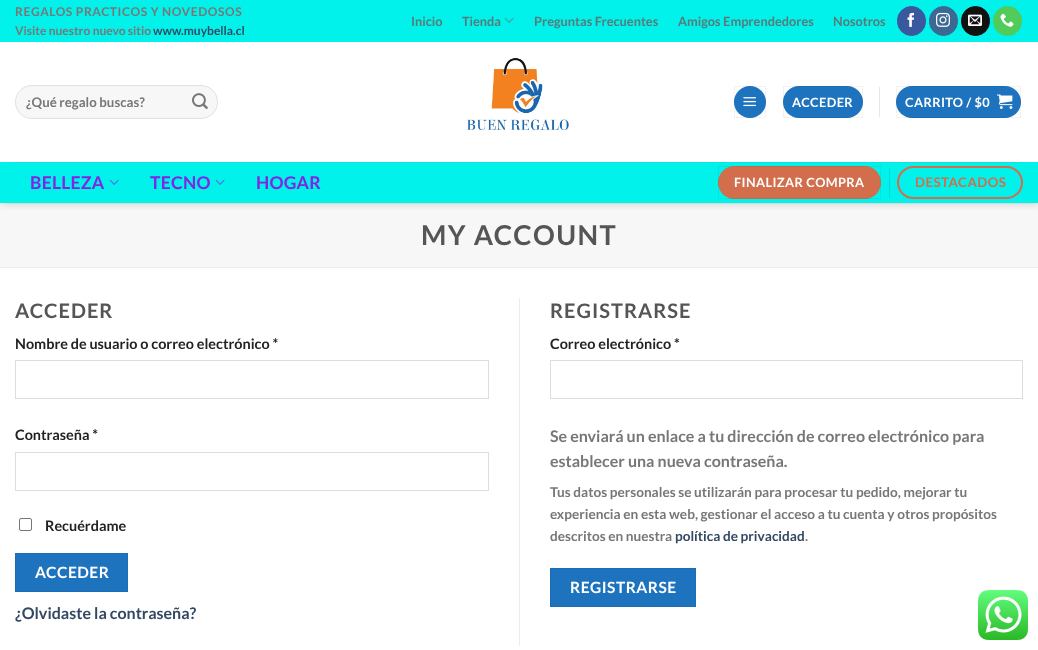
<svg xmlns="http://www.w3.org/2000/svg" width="1038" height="650">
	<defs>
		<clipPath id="clip1"><rect x="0" y="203" width="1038" height="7" /></clipPath>
	</defs>
	<rect width="100%" height="100%" fill="#FFFFFF" />
	<rect x="0" y="204" width="1038" height="63" fill="#F7F7F7" />
	<rect x="0" y="203" width="1038" height="1" fill="#ECECEC" />
	<g clip-path="url(#clip1)">
		<rect x="1" y="1" width="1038" height="203" fill="#000000" fill-opacity="0.15" filter="blur(5px)" />
	</g>
	<rect x="0" y="0" width="1038" height="42" fill="#00F2EA" />
	<text x="15" y="16" font-family="Lato" font-size="12" font-weight="700" letter-spacing="0.6" fill="#777777">REGALOS PRACTICOS Y NOVEDOSOS</text>
	<text x="15" y="35" font-family="Lato" font-size="12" font-weight="700" fill="#777777">Visite nuestro nuevo sitio</text>
	<text x="153" y="35" font-family="Lato" font-size="12" font-weight="700" fill="#334862">www.muybella.cl</text>
	<g font-family="Lato" font-size="12.75" font-weight="700" fill="#577B7A">
		<text x="411" y="26">Inicio</text>
		<text x="462" y="26">Tienda</text>
	</g>
	<image x="504" y="17" width="10" height="6" href="assets/img1.png" />
	<g font-family="Lato" font-size="12.75" font-weight="700" fill="#577B7A">
		<text x="534" y="26">Preguntas Frecuentes</text>
		<text x="678" y="26">Amigos Emprendedores</text>
		<text x="833" y="26">Nosotros</text>
	</g>
	<rect x="897.5" y="6.5" width="28" height="29" rx="14" fill="#3A589D" stroke="#3A589D" />
	<image x="907" y="12" width="7" height="15" href="assets/img2.png" />
	<rect x="929.5" y="6.5" width="28" height="29" rx="14" fill="#3B6994" stroke="#3B6994" />
	<image x="936" y="12" width="14" height="15" href="assets/img3.png" />
	<rect x="961.5" y="6.5" width="28" height="29" rx="14" fill="#111111" stroke="#111111" />
	<image x="968" y="14" width="14" height="12" href="assets/img4.png" />
	<rect x="993.5" y="6.5" width="28" height="29" rx="14" fill="#51CB5A" stroke="#51CB5A" />
	<image x="1000" y="13" width="14" height="14" href="assets/img5.png" />
	<rect x="15" y="85" width="203" height="34" rx="17" fill="#F7F7F7" />
	<rect x="15.5" y="85.5" width="202" height="33" rx="16.5" fill="none" stroke="#000000" stroke-opacity="0.09" />
	<text x="26" y="107" font-family="Lato" font-size="13.25" font-weight="700" fill="#777777">¿Qué regalo buscas?</text>
	<image x="192" y="93" width="16" height="16" href="assets/img6.png" />
	<image x="467" y="58" width="102" height="73" href="assets/img7.png" />
	<circle cx="750" cy="102" r="16" fill="#1E73BE" />
	<rect x="734.5" y="86.5" width="31" height="31" fill="none" stroke="#000000" stroke-opacity="0.05" />
	<image x="743" y="97" width="13" height="10" href="assets/img8.png" />
	<rect x="783" y="86" width="80" height="32" rx="16" fill="#1E73BE" />
	<rect x="783.5" y="86.5" width="79" height="31" fill="none" stroke="#000000" stroke-opacity="0.05" />
	<text x="792" y="107" font-family="Lato" font-size="12.75" font-weight="700" letter-spacing="0.4" fill="#FFFFFF">ACCEDER</text>
	<rect x="879" y="87" width="1" height="30" fill="#E6E6E6" />
	<rect x="896" y="86" width="125" height="32" rx="16" fill="#1E73BE" />
	<rect x="896.5" y="86.5" width="124" height="31" fill="none" stroke="#000000" stroke-opacity="0.05" />
	<text x="905" y="107" font-family="Lato" font-size="12.75" font-weight="700" letter-spacing="0.4" fill="#FFFFFF">CARRITO / $0</text>
	<image x="997" y="94" width="16" height="15" href="assets/img9.png" />
	<rect x="0" y="162" width="1038" height="41" fill="#00F2EA" />
	<rect x="15" y="162" width="1008" height="1" fill="#0CE6DE" />
	<text x="30" y="189" font-family="Lato" font-size="17.5" font-weight="700" letter-spacing="0.25" fill="#8224E3">BELLEZA</text>
	<image x="109" y="179" width="10" height="6" href="assets/img10.png" />
	<text x="150" y="189" font-family="Lato" font-size="17.5" font-weight="700" letter-spacing="0.25" fill="#8224E3">TECNO</text>
	<image x="215" y="179" width="10" height="6" href="assets/img10.png" />
	<text x="256" y="189" font-family="Lato" font-size="17.5" font-weight="700" letter-spacing="0.25" fill="#8224E3">HOGAR</text>
	<rect x="718" y="166" width="163" height="33" rx="16.5" fill="#D26E4B" />
	<rect x="718.5" y="166.5" width="162" height="32" fill="none" stroke="#000000" stroke-opacity="0.05" />
	<text x="734" y="187" font-family="Lato" font-size="12.75" font-weight="700" letter-spacing="0.4" fill="#FFFFFF">FINALIZAR COMPRA</text>
	<rect x="889" y="168" width="1" height="30" fill="#00DAD3" />
	<rect x="898" y="167" width="124" height="31" rx="15.5" fill="none" stroke="#D26E4B" stroke-width="2" />
	<text x="915" y="187" font-family="Lato" font-size="13.25" font-weight="700" letter-spacing="0.5" fill="#D26E4B">DESTACADOS</text>
	<rect x="0" y="267" width="1038" height="1" fill="#ECECEC" />
	<text x="421" y="245" font-family="Lato" font-size="27.25" font-weight="700" letter-spacing="1.4" fill="#555555">MY ACCOUNT</text>
	<text x="15" y="318" font-family="Lato" font-size="20" font-weight="700" letter-spacing="1" fill="#555555">ACCEDER</text>
	<text x="15" y="349" font-family="Lato" font-size="14.4" font-weight="700" fill="#222222">Nombre de usuario o correo electrónico *</text>
	<rect x="15.5" y="360.5" width="473" height="38" fill="none" stroke="#DDDDDD" />
	<text x="15" y="440" font-family="Lato" font-size="14.4" font-weight="700" fill="#222222">Contraseña *</text>
	<rect x="15.5" y="452.5" width="473" height="38" fill="none" stroke="#DDDDDD" />
	<rect x="19.5" y="518.5" width="12" height="12" rx="1.5" fill="none" stroke="#767676" />
	<text x="45" y="531" font-family="Lato" font-size="14.4" font-weight="700" fill="#222222">Recuérdame</text>
	<rect x="15.5" y="553.5" width="112" height="38" fill="#1E73BE" stroke="#1D6DB5" />
	<text x="35" y="578" font-family="Lato" font-size="15.5" font-weight="700" letter-spacing="0.5" fill="#FFFFFF">ACCEDER</text>
	<text x="15" y="619" font-family="Lato" font-size="16" font-weight="700" fill="#334862">¿Olvidaste la contraseña?</text>
	<rect x="519" y="298" width="1" height="348" fill="#ECECEC" />
	<text x="550" y="318" font-family="Lato" font-size="20" font-weight="700" letter-spacing="1" fill="#555555">REGISTRARSE</text>
	<text x="550" y="349" font-family="Lato" font-size="14.4" font-weight="700" fill="#222222">Correo electrónico *</text>
	<rect x="550.5" y="360.5" width="472" height="38" fill="none" stroke="#DDDDDD" />
	<g font-family="Lato" font-size="16" font-weight="700" fill="#777777">
		<text x="550" y="442">Se enviará un enlace a tu dirección de correo electrónico para</text>
		<text x="550" y="467">establecer una nueva contraseña.</text>
	</g>
	<g font-family="Lato" font-size="13.6" font-weight="700" fill="#777777">
		<text x="550" y="497">Tus datos personales se utilizarán para procesar tu pedido, mejorar tu</text>
		<text x="550" y="519">experiencia en esta web, gestionar el acceso a tu cuenta y otros propósitos</text>
		<text x="550" y="541">descritos en nuestra</text>
	</g>
	<text x="675" y="541" font-family="Lato" font-size="13.6" font-weight="700" fill="#334862">política de privacidad</text>
	<text x="805" y="541" font-family="Lato" font-size="13.6" font-weight="700" fill="#777777">.</text>
	<rect x="550.5" y="568.5" width="145" height="38" fill="#1E73BE" stroke="#1D6DB5" />
	<text x="570" y="593" font-family="Lato" font-size="15.5" font-weight="700" letter-spacing="0.5" fill="#FFFFFF">REGISTRARSE</text>
	<image x="978" y="590" width="50" height="50" href="assets/img11.png" />
</svg>
